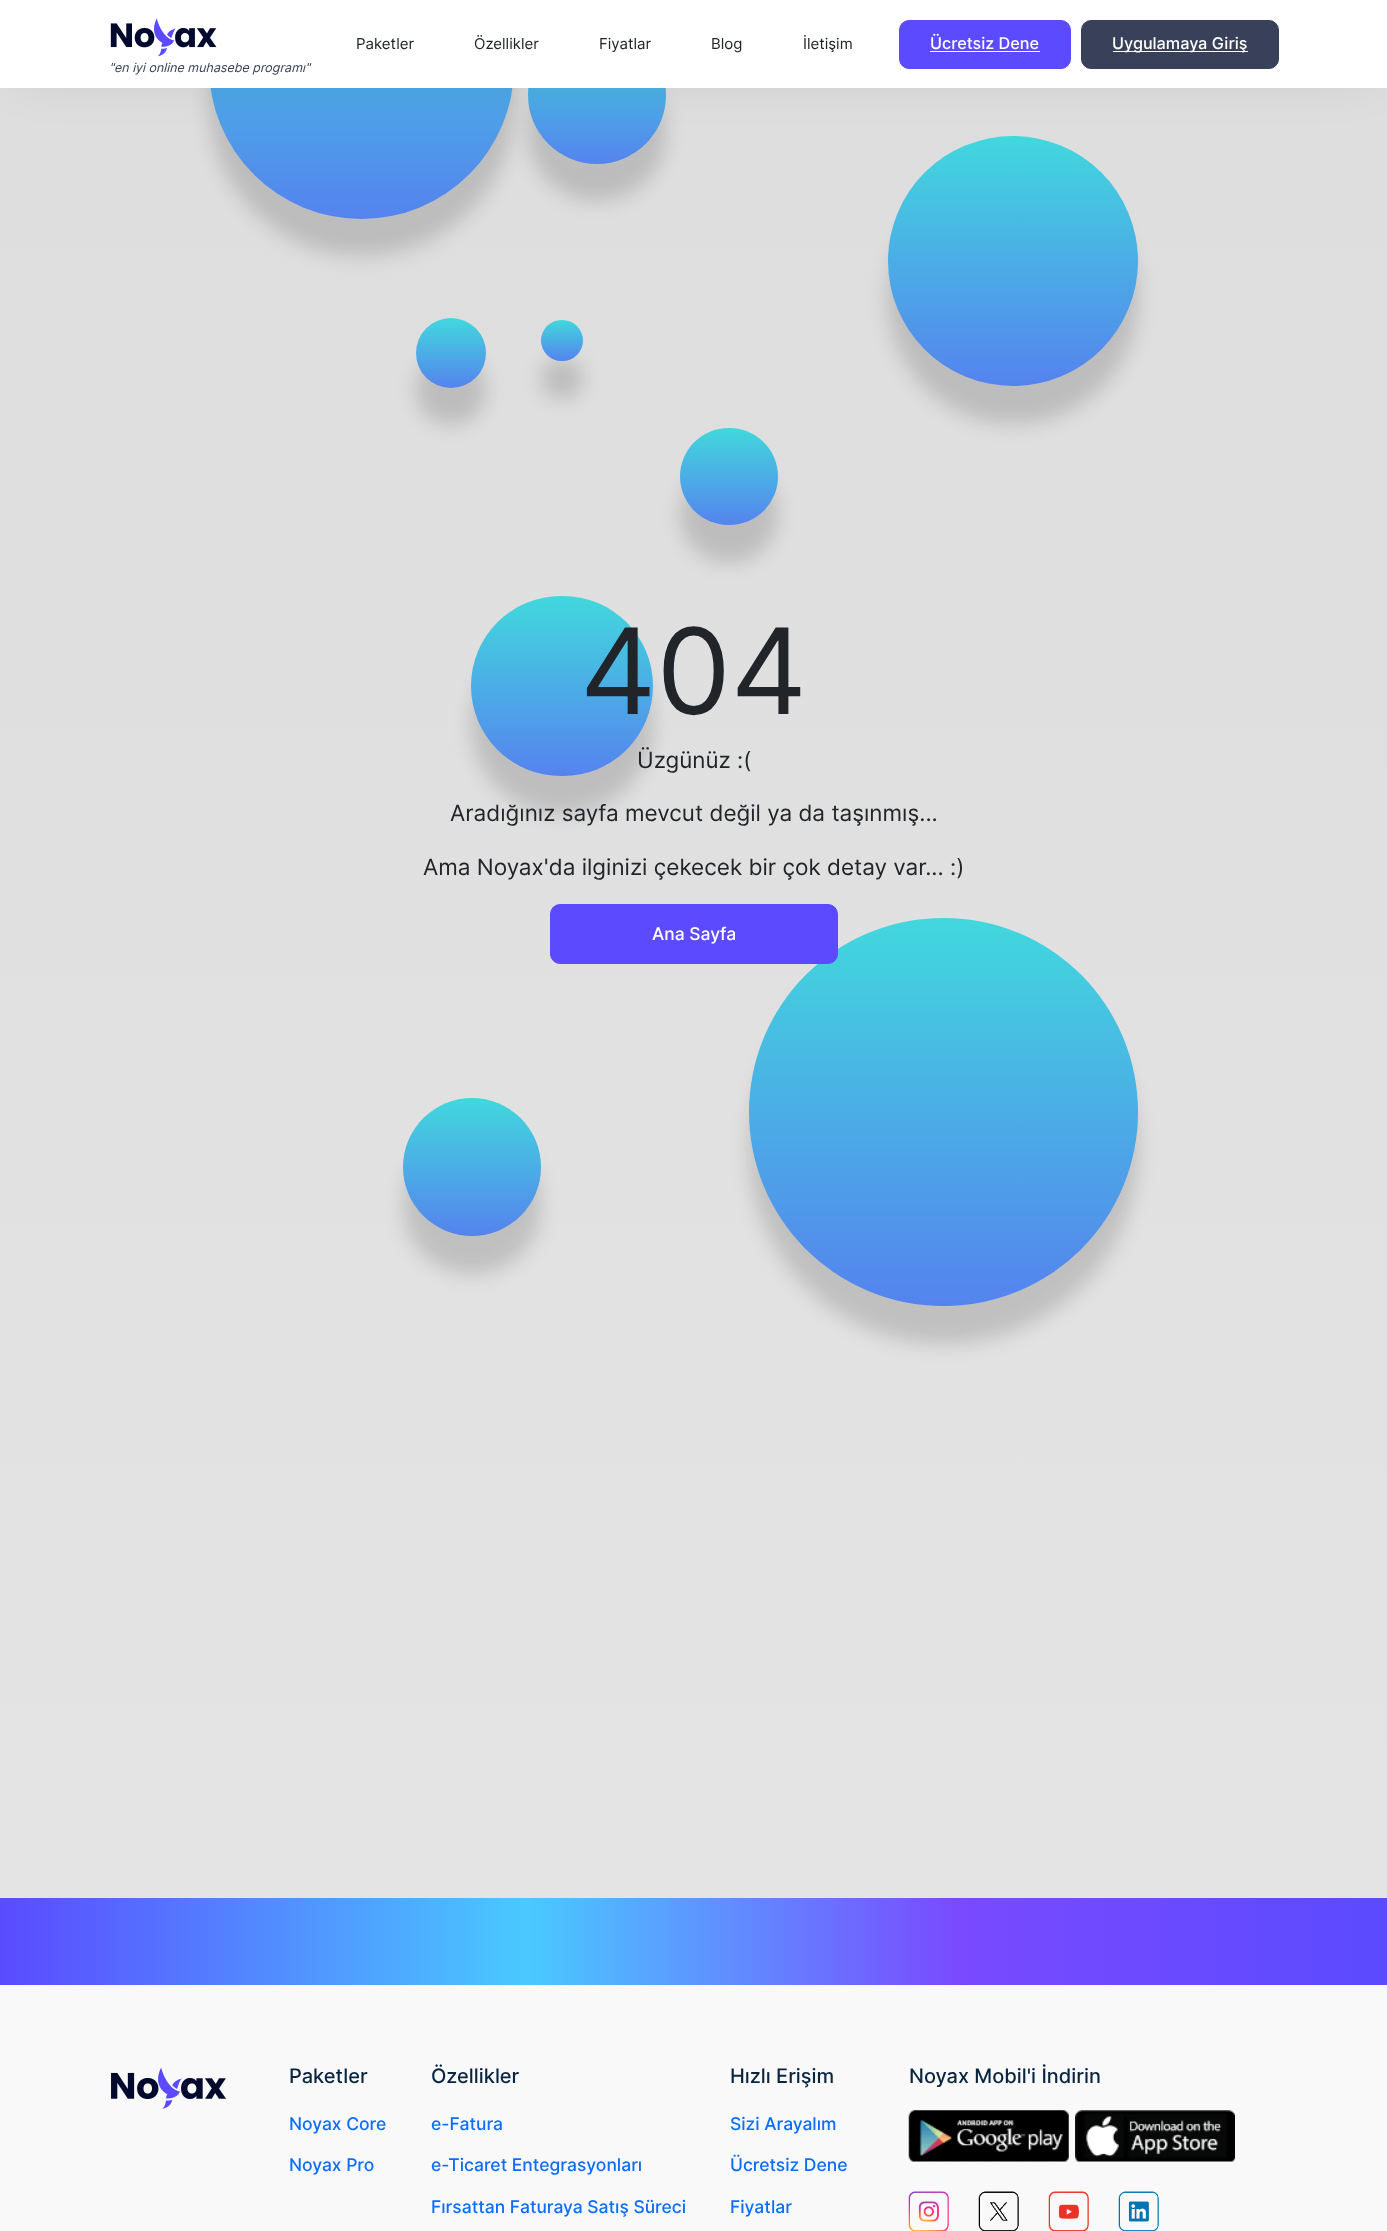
<svg xmlns="http://www.w3.org/2000/svg" width="1387" height="2231">
	<defs>
		<linearGradient id="g1" gradientUnits="userSpaceOnUse" x1="694" y1="-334" x2="694" y2="1898"><stop offset="0" stop-color="#DCDCDC" /><stop offset="1" stop-color="#E4E4E4" /></linearGradient>
		<linearGradient id="g2" gradientUnits="userSpaceOnUse" x1="361" y1="-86" x2="361" y2="219"><stop offset="0" stop-color="#41D8DD" /><stop offset="1" stop-color="#5583EE" /></linearGradient>
		<linearGradient id="g3" gradientUnits="userSpaceOnUse" x1="597" y1="25" x2="597" y2="164"><stop offset="0" stop-color="#41D8DD" /><stop offset="1" stop-color="#5583EE" /></linearGradient>
		<linearGradient id="g4" gradientUnits="userSpaceOnUse" x1="1013" y1="136" x2="1013" y2="386"><stop offset="0" stop-color="#41D8DD" /><stop offset="1" stop-color="#5583EE" /></linearGradient>
		<linearGradient id="g5" gradientUnits="userSpaceOnUse" x1="562" y1="596" x2="562" y2="776"><stop offset="0" stop-color="#41D8DD" /><stop offset="1" stop-color="#5583EE" /></linearGradient>
		<linearGradient id="g6" gradientUnits="userSpaceOnUse" x1="451" y1="318" x2="451" y2="388"><stop offset="0" stop-color="#41D8DD" /><stop offset="1" stop-color="#5583EE" /></linearGradient>
		<linearGradient id="g7" gradientUnits="userSpaceOnUse" x1="729" y1="428" x2="729" y2="525"><stop offset="0" stop-color="#41D8DD" /><stop offset="1" stop-color="#5583EE" /></linearGradient>
		<linearGradient id="g8" gradientUnits="userSpaceOnUse" x1="562" y1="320" x2="562" y2="361"><stop offset="0" stop-color="#41D8DD" /><stop offset="1" stop-color="#5583EE" /></linearGradient>
		<linearGradient id="g9" gradientUnits="userSpaceOnUse" x1="943" y1="918" x2="943" y2="1306"><stop offset="0" stop-color="#41D8DD" /><stop offset="1" stop-color="#5583EE" /></linearGradient>
		<linearGradient id="g10" gradientUnits="userSpaceOnUse" x1="472" y1="1098" x2="472" y2="1236"><stop offset="0" stop-color="#41D8DD" /><stop offset="1" stop-color="#5583EE" /></linearGradient>
		<linearGradient id="g11" gradientUnits="userSpaceOnUse" x1="0" y1="1941" x2="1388" y2="1941"><stop offset="0" stop-color="#5B4AFF" /><stop offset="0.38" stop-color="#4AC9FF" /><stop offset="0.69" stop-color="#794AFF" /><stop offset="1" stop-color="#5B4AFF" /></linearGradient>
	</defs>
	<rect width="100%" height="100%" fill="#FFFFFF" />
	<rect x="0" y="88" width="1387" height="1810" fill="url(#g1)" />
	<rect x="209" y="-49" width="305" height="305" rx="152.5" fill="#000000" fill-opacity="0.15" filter="blur(9.5px)" />
	<circle cx="361.5" cy="66.5" r="152.5" fill="url(#g2)" />
	<rect x="528" y="63" width="138" height="138" rx="69" fill="#000000" fill-opacity="0.15" filter="blur(9.5px)" />
	<rect x="528" y="25" width="138" height="139" rx="69" fill="url(#g3)" />
	<rect x="888" y="174" width="250" height="250" rx="125" fill="#000000" fill-opacity="0.15" filter="blur(9.5px)" />
	<circle cx="1013" cy="261" r="125" fill="url(#g4)" />
	<rect x="18" y="24" width="1352" height="52" fill="#000000" fill-opacity="0.1" filter="blur(25px)" />
	<rect x="0" y="0" width="1387" height="88" fill="#FFFFFF" />
	<g font-family="Inter" font-size="15" fill="#212529">
		<text x="356" y="49">Paketler</text>
		<text x="474" y="49">Özellikler</text>
		<text x="599" y="49">Fiyatlar</text>
		<text x="711" y="49">Blog</text>
		<text x="803" y="49">İletişim</text>
	</g>
	<rect x="899.5" y="20.5" width="171" height="48" rx="9.5" fill="#5B4AFF" stroke="#5B4AFF" />
	<text x="930" y="49" font-family="Inter" font-size="16.25" font-weight="500" fill="#FFFFFF">Ücretsiz Dene</text>
	<rect x="930" y="51" width="110" height="1" fill="#FFFFFF" />
	<rect x="1081.5" y="20.5" width="197" height="48" rx="9.5" fill="#39415A" stroke="#39415A" />
	<rect x="1113" y="51" width="135" height="1" fill="#FFFFFF" />
	<text x="1112" y="49" font-family="Inter" font-size="16.25" font-weight="500" fill="#FFFFFF">Uygulamaya Giriş</text>
	<image x="110" y="18" width="107" height="39" href="assets/img1.png" />
	<text x="109" y="72" font-family="Inter" font-size="12.5" font-style="italic" fill="#39415A">"en iyi online muhasebe programı"</text>
	<rect x="471" y="634" width="182" height="180" rx="90" fill="#000000" fill-opacity="0.15" filter="blur(9.5px)" />
	<rect x="471" y="596" width="182" height="180" rx="90" fill="url(#g5)" />
	<rect x="416" y="355" width="70" height="70" rx="35" fill="#000000" fill-opacity="0.15" filter="blur(9.5px)" />
	<circle cx="451" cy="353" r="35" fill="url(#g6)" />
	<rect x="680" y="465" width="98" height="98" rx="49" fill="#000000" fill-opacity="0.15" filter="blur(9.5px)" />
	<rect x="680" y="428" width="98" height="97" rx="48.5" fill="url(#g7)" />
	<rect x="541" y="358" width="42" height="41" rx="20.5" fill="#000000" fill-opacity="0.15" filter="blur(9.5px)" />
	<rect x="541" y="320" width="42" height="41" rx="20.5" fill="url(#g8)" />
	<text x="580" y="714" font-family="Inter" font-size="119" fill="#212529">404</text>
	<g font-family="Inter" font-size="22.5" fill="#212529">
		<text x="637" y="768">Üzgünüz :(</text>
		<text x="450" y="821">Aradığınız sayfa mevcut değil ya da taşınmış...</text>
		<text x="423" y="875">Ama Noyax'da ilginizi çekecek bir çok detay var... :)</text>
	</g>
	<rect x="749" y="955" width="389" height="389" rx="194.5" fill="#000000" fill-opacity="0.15" filter="blur(9.5px)" />
	<rect x="749" y="918" width="389" height="388" rx="194" fill="url(#g9)" />
	<rect x="550.5" y="904.5" width="287" height="59" rx="9.5" fill="#5B4AFF" stroke="#5B4AFF" />
	<text x="652" y="940" font-family="Inter" font-size="17.5" font-weight="500" fill="#FFFFFF">Ana Sayfa</text>
	<rect x="403" y="1135" width="138" height="139" rx="69" fill="#000000" fill-opacity="0.15" filter="blur(9.5px)" />
	<circle cx="472" cy="1167" r="69" fill="url(#g10)" />
	<rect x="0" y="1898" width="1387" height="87" fill="url(#g11)" />
	<rect x="0" y="1985" width="1387" height="246" fill="#F9F9F9" />
	<image x="111" y="2067" width="115" height="42" href="assets/img2.png" />
	<text x="289" y="2083" font-family="Inter" font-size="20" font-weight="500" fill="#0A2540">Paketler</text>
	<g font-family="Inter" font-size="17.5" font-weight="500" fill="#0D6EFD">
		<text x="289" y="2130">Noyax Core</text>
		<text x="289" y="2171">Noyax Pro</text>
	</g>
	<text x="431" y="2083" font-family="Inter" font-size="20" font-weight="500" fill="#0A2540">Özellikler</text>
	<g font-family="Inter" font-size="17.5" font-weight="500" fill="#0D6EFD">
		<text x="431" y="2130">e-Fatura</text>
		<text x="431" y="2171">e-Ticaret Entegrasyonları</text>
		<text x="431" y="2213">Fırsattan Faturaya Satış Süreci</text>
	</g>
	<text x="730" y="2083" font-family="Inter" font-size="20" font-weight="500" fill="#0A2540">Hızlı Erişim</text>
	<g font-family="Inter" font-size="17.5" font-weight="500" fill="#0D6EFD">
		<text x="730" y="2130">Sizi Arayalım</text>
		<text x="730" y="2171">Ücretsiz Dene</text>
		<text x="730" y="2213">Fiyatlar</text>
	</g>
	<text x="909" y="2083" font-family="Inter" font-size="20" font-weight="500" fill="#0A2540">Noyax Mobil'i İndirin</text>
	<image x="908" y="2110" width="161" height="52" href="assets/img3.png" />
	<image x="1075" y="2110" width="160" height="52" href="assets/img4.png" />
	<image x="908" y="2191" width="41" height="40" href="assets/img5.png" />
	<image x="978" y="2191" width="41" height="40" href="assets/img6.png" />
	<image x="1048" y="2191" width="41" height="40" href="assets/img7.png" />
	<image x="1118" y="2191" width="41" height="40" href="assets/img8.png" />
</svg>
